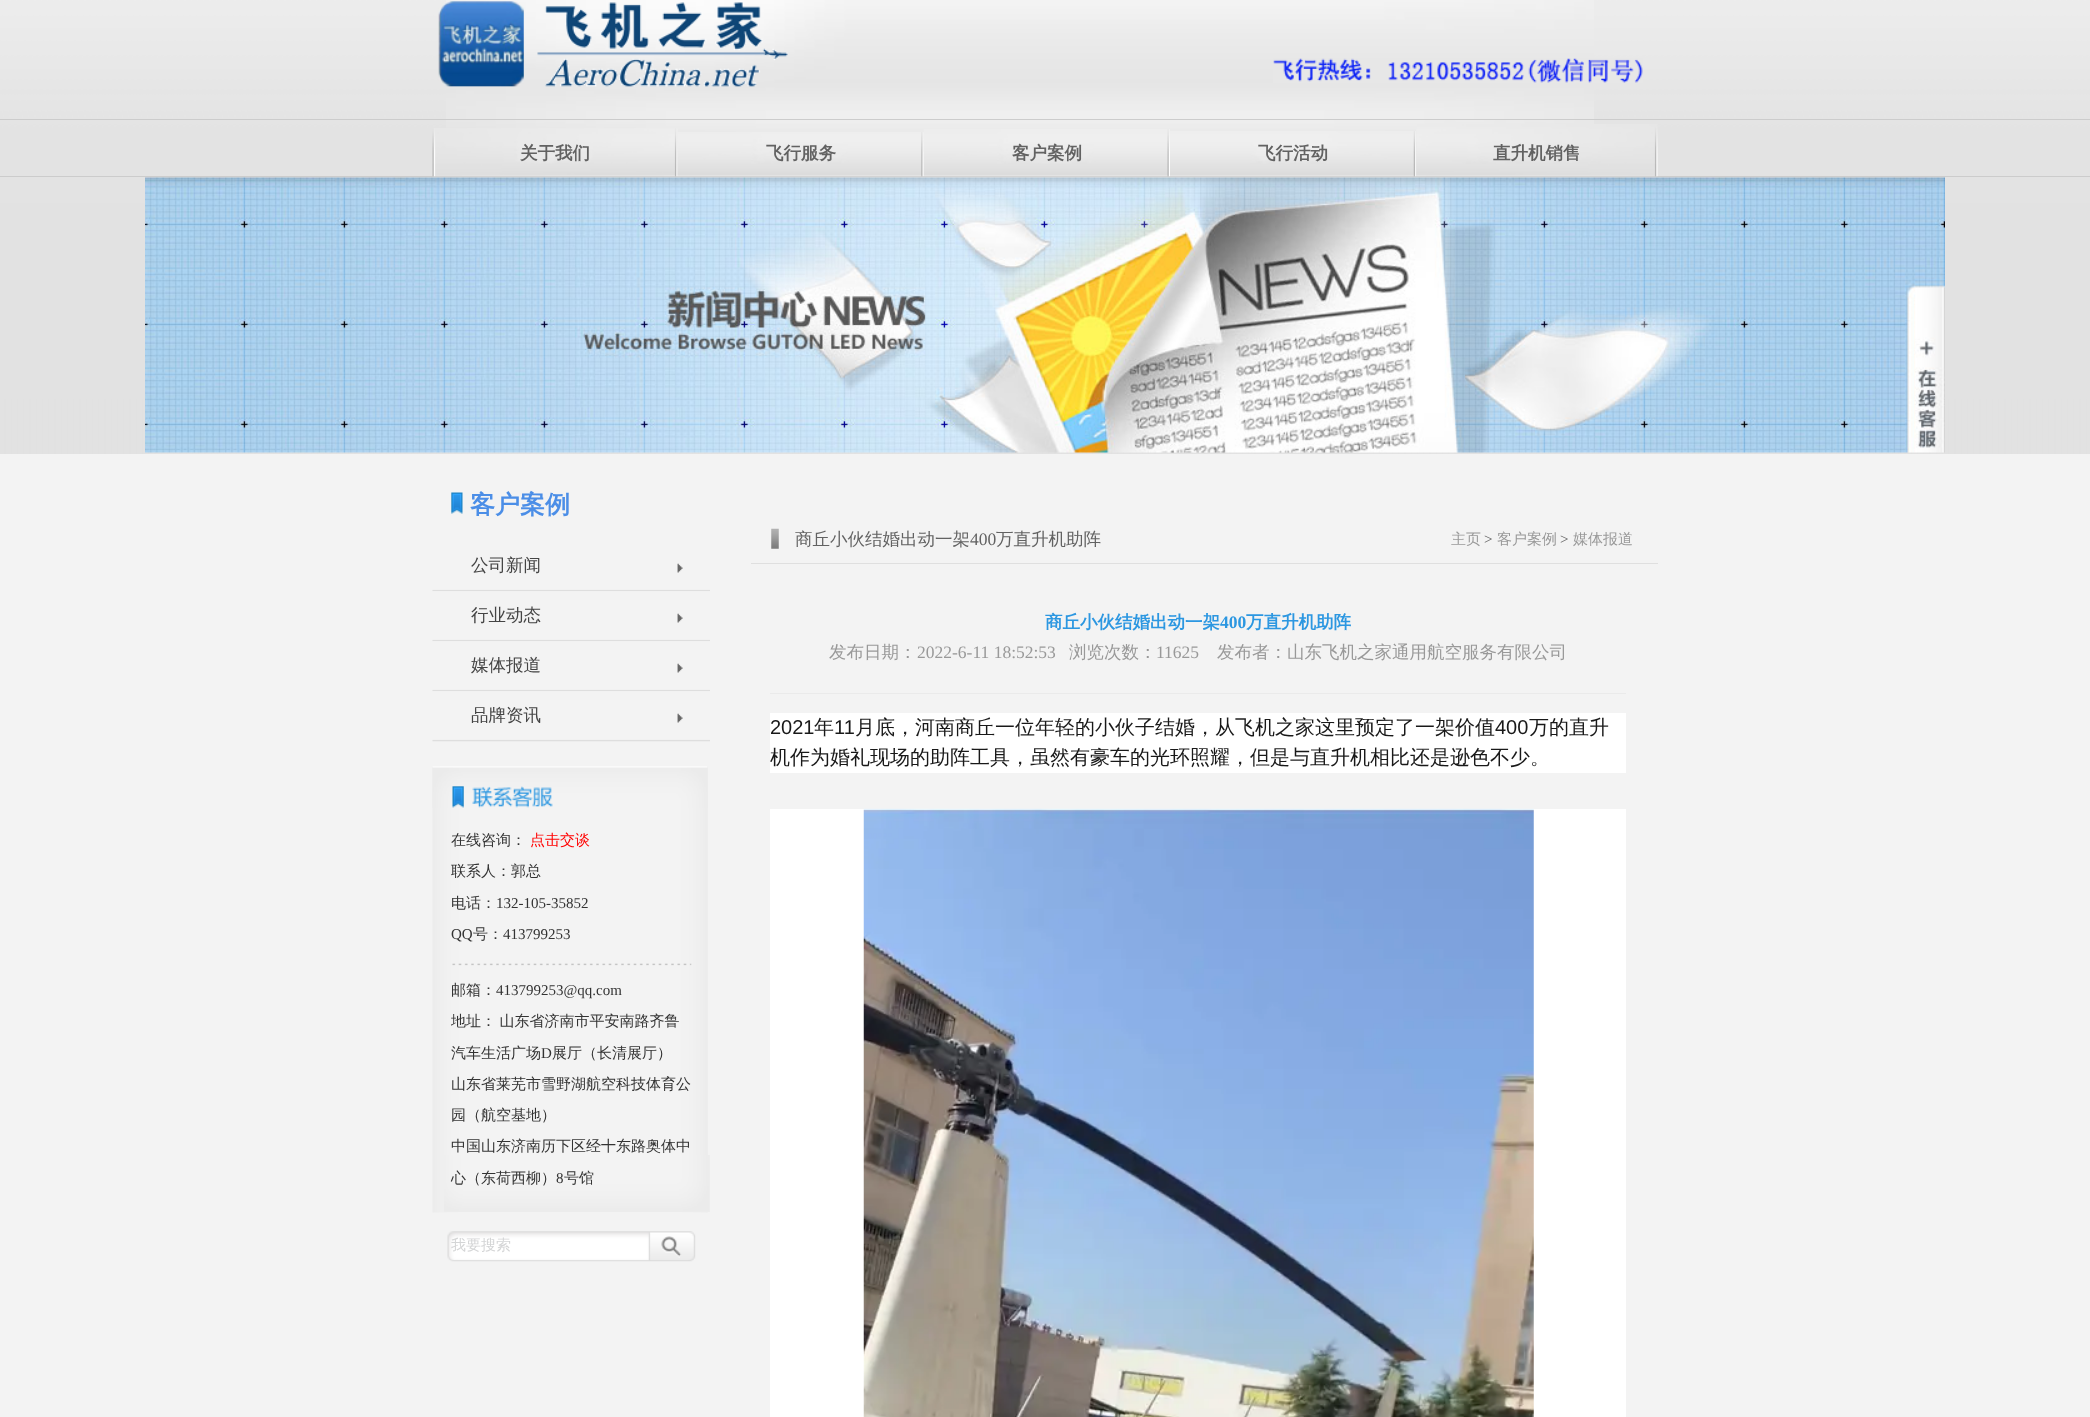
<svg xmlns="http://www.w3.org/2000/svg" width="2090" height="1417">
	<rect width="100%" height="100%" fill="#FFFFFF" />
	<image x="0" y="0" width="2090" height="454" href="assets/img1.png" />
	<image x="446" y="0" width="1148" height="152" href="assets/img2.png" />
	<image x="438" y="1" width="350" height="86" href="assets/img3.png" />
	<image x="1273" y="58" width="370" height="25" href="assets/img4.png" />
	<rect x="0" y="119" width="2090" height="1" fill="#CCCCCC" />
	<rect x="0" y="176" width="2090" height="1" fill="#CCCCCC" />
	<image x="432" y="128" width="246" height="49" href="assets/img5.png" />
	<text x="520" y="159" font-family="WenQuanYi Zen Hei" font-size="17.5" font-weight="700" fill="#626262">关于我们</text>
	<image x="677" y="132" width="247" height="45" href="assets/img6.png" />
	<text x="766" y="159" font-family="WenQuanYi Zen Hei" font-size="17.5" font-weight="700" fill="#626262">飞行服务</text>
	<image x="923" y="129" width="247" height="48" href="assets/img7.png" />
	<text x="1012" y="159" font-family="WenQuanYi Zen Hei" font-size="17.5" font-weight="700" fill="#626262">客户案例</text>
	<image x="1170" y="131" width="247" height="46" href="assets/img8.png" />
	<text x="1258" y="159" font-family="WenQuanYi Zen Hei" font-size="17.5" font-weight="700" fill="#626262">飞行活动</text>
	<image x="1416" y="124" width="242" height="53" href="assets/img9.png" />
	<text x="1493" y="159" font-family="WenQuanYi Zen Hei" font-size="17.5" font-weight="700" fill="#626262">直升机销售</text>
	<image x="145" y="177" width="1800" height="276" href="assets/img10.png" />
	<rect x="0" y="454" width="2090" height="963" fill="#F3F3F3" />
	<image x="451" y="492" width="12" height="22" href="assets/img11.png" />
	<text x="470" y="513" font-family="WenQuanYi Zen Hei" font-size="25" font-weight="700" fill="#4B8EE7">客户案例</text>
	<image x="432" y="563" width="278" height="29" href="assets/img12.png" />
	<text x="471" y="571" font-family="WenQuanYi Zen Hei" font-size="17.5" font-weight="500" fill="#444444">公司新闻</text>
	<image x="432" y="591" width="278" height="51" href="assets/img13.png" />
	<text x="471" y="621" font-family="WenQuanYi Zen Hei" font-size="17.5" font-weight="500" fill="#444444">行业动态</text>
	<image x="432" y="641" width="278" height="51" href="assets/img13.png" />
	<text x="471" y="671" font-family="WenQuanYi Zen Hei" font-size="17.5" font-weight="500" fill="#444444">媒体报道</text>
	<image x="432" y="691" width="278" height="51" href="assets/img13.png" />
	<text x="471" y="721" font-family="WenQuanYi Zen Hei" font-size="17.5" font-weight="500" fill="#444444">品牌资讯</text>
	<image x="432" y="766" width="276" height="447" href="assets/img14.png" />
	<image x="432" y="766" width="276" height="42" href="assets/img15.png" />
	<image x="444" y="1155" width="266" height="57" href="assets/img16.png" />
	<text x="451" y="845" font-family="WenQuanYi Zen Hei" font-size="15" font-weight="500" fill="#333333">在线咨询：</text>
	<text x="530" y="845" font-family="WenQuanYi Zen Hei" font-size="15" font-weight="500" fill="#FF0000">点击交谈</text>
	<g font-family="WenQuanYi Zen Hei" font-size="15" font-weight="500" fill="#333333">
		<text x="451" y="876">联系人：郭总</text>
		<text x="451" y="908">电话：</text>
	</g>
	<g font-family="Liberation Serif" font-size="15" fill="#333333">
		<text x="496" y="908">132-105-35852</text>
		<text x="451" y="939">QQ</text>
	</g>
	<text x="473" y="939" font-family="WenQuanYi Zen Hei" font-size="15" font-weight="500" fill="#333333">号：</text>
	<text x="503" y="939" font-family="Liberation Serif" font-size="15" fill="#333333">413799253</text>
	<image x="452" y="963" width="240" height="3" href="assets/img17.png" />
	<text x="451" y="995" font-family="WenQuanYi Zen Hei" font-size="15" font-weight="500" fill="#333333">邮箱：</text>
	<text x="496" y="995" font-family="Liberation Serif" font-size="15" fill="#333333">413799253@qq.com</text>
	<g font-family="WenQuanYi Zen Hei" font-size="15" font-weight="500" fill="#333333">
		<text x="451" y="1026" word-spacing="-1">地址： 山东省济南市平安南路齐鲁</text>
		<text x="451" y="1058">汽车生活广场</text>
	</g>
	<text x="541" y="1058" font-family="Liberation Serif" font-size="15" fill="#333333">D</text>
	<g font-family="WenQuanYi Zen Hei" font-size="15" font-weight="500" fill="#333333">
		<text x="552" y="1058">展厅（长清展厅）</text>
		<text x="451" y="1089">山东省莱芜市雪野湖航空科技体育公</text>
		<text x="451" y="1120">园（航空基地）</text>
		<text x="451" y="1151">中国山东济南历下区经十东路奥体中</text>
		<text x="451" y="1183">心（东荷西柳）</text>
	</g>
	<text x="556" y="1183" font-family="Liberation Serif" font-size="15" fill="#333333">8</text>
	<text x="564" y="1183" font-family="WenQuanYi Zen Hei" font-size="15" font-weight="500" fill="#333333">号馆</text>
	<image x="447" y="1231" width="249" height="31" href="assets/img18.png" />
	<text x="451" y="1250" font-family="WenQuanYi Zen Hei" font-size="15" font-weight="500" fill="#D4D5D6">我要搜索</text>
	<image x="771" y="528" width="8" height="21" href="assets/img19.png" />
	<rect x="751" y="563" width="907" height="1" fill="#DFDFDF" />
	<text x="795" y="545" font-family="WenQuanYi Zen Hei" font-size="17.5" font-weight="500" fill="#626262">商丘小伙结婚出动一架</text>
	<text x="970" y="545" font-family="Liberation Serif" font-size="17.5" fill="#626262">400</text>
	<text x="996" y="545" font-family="WenQuanYi Zen Hei" font-size="17.5" font-weight="500" fill="#626262">万直升机助阵</text>
	<text x="1451" y="544" font-family="WenQuanYi Zen Hei" font-size="15" font-weight="500" fill="#999999">主页</text>
	<text x="1484" y="544" font-family="Liberation Serif" font-size="15" fill="#626262">&gt;</text>
	<text x="1497" y="544" font-family="WenQuanYi Zen Hei" font-size="15" font-weight="500" fill="#999999">客户案例</text>
	<text x="1560" y="544" font-family="Liberation Serif" font-size="15" fill="#626262">&gt;</text>
	<text x="1573" y="544" font-family="WenQuanYi Zen Hei" font-size="15" font-weight="500" fill="#999999">媒体报道</text>
	<rect x="770" y="693" width="856" height="1" fill="#EAEAEA" />
	<text x="1045" y="628" font-family="WenQuanYi Zen Hei" font-size="17.5" font-weight="700" fill="#2C97E1">商丘小伙结婚出动一架</text>
	<text x="1220" y="628" font-family="Liberation Serif" font-size="17.5" font-weight="700" fill="#2C97E1">400</text>
	<text x="1246" y="628" font-family="WenQuanYi Zen Hei" font-size="17.5" font-weight="700" fill="#2C97E1">万直升机助阵</text>
	<text x="829" y="658" font-family="WenQuanYi Zen Hei" font-size="17.5" font-weight="500" fill="#999999">发布日期：</text>
	<text x="917" y="658" font-family="Liberation Serif" font-size="17.5" fill="#999999">2022-6-11 18:52:53</text>
	<text x="1069" y="658" font-family="WenQuanYi Zen Hei" font-size="17.5" font-weight="500" fill="#999999">浏览次数：</text>
	<text x="1156" y="658" font-family="Liberation Serif" font-size="17.5" fill="#999999">11625</text>
	<text x="1217" y="658" font-family="WenQuanYi Zen Hei" font-size="17.5" font-weight="500" fill="#999999">发布者：山东飞机之家通用航空服务有限公司</text>
	<rect x="770" y="713" width="856" height="60" fill="#FFFFFF" />
	<text x="770" y="734" font-family="Liberation Sans" font-size="20" fill="#191919">2021</text>
	<text x="814" y="734" font-family="WenQuanYi Zen Hei" font-size="20" font-weight="500" fill="#191919">年</text>
	<text x="834" y="734" font-family="Liberation Sans" font-size="20" fill="#191919">11</text>
	<text x="855" y="734" font-family="WenQuanYi Zen Hei" font-size="20" font-weight="500" fill="#191919">月底，河南商丘一位年轻的小伙子结婚，从飞机之家这里预定了一架价值</text>
	<text x="1495" y="734" font-family="Liberation Sans" font-size="20" fill="#191919">400</text>
	<g font-family="WenQuanYi Zen Hei" font-size="20" font-weight="500" fill="#191919">
		<text x="1529" y="734">万的直升</text>
		<text x="770" y="764">机作为婚礼现场的助阵工具，虽然有豪车的光环照耀，但是与直升机相比还是逊色不少。</text>
	</g>
	<rect x="770" y="809" width="856" height="608" fill="#FFFFFF" />
	<image x="863" y="808" width="671" height="609" href="assets/img20.png" />
</svg>
